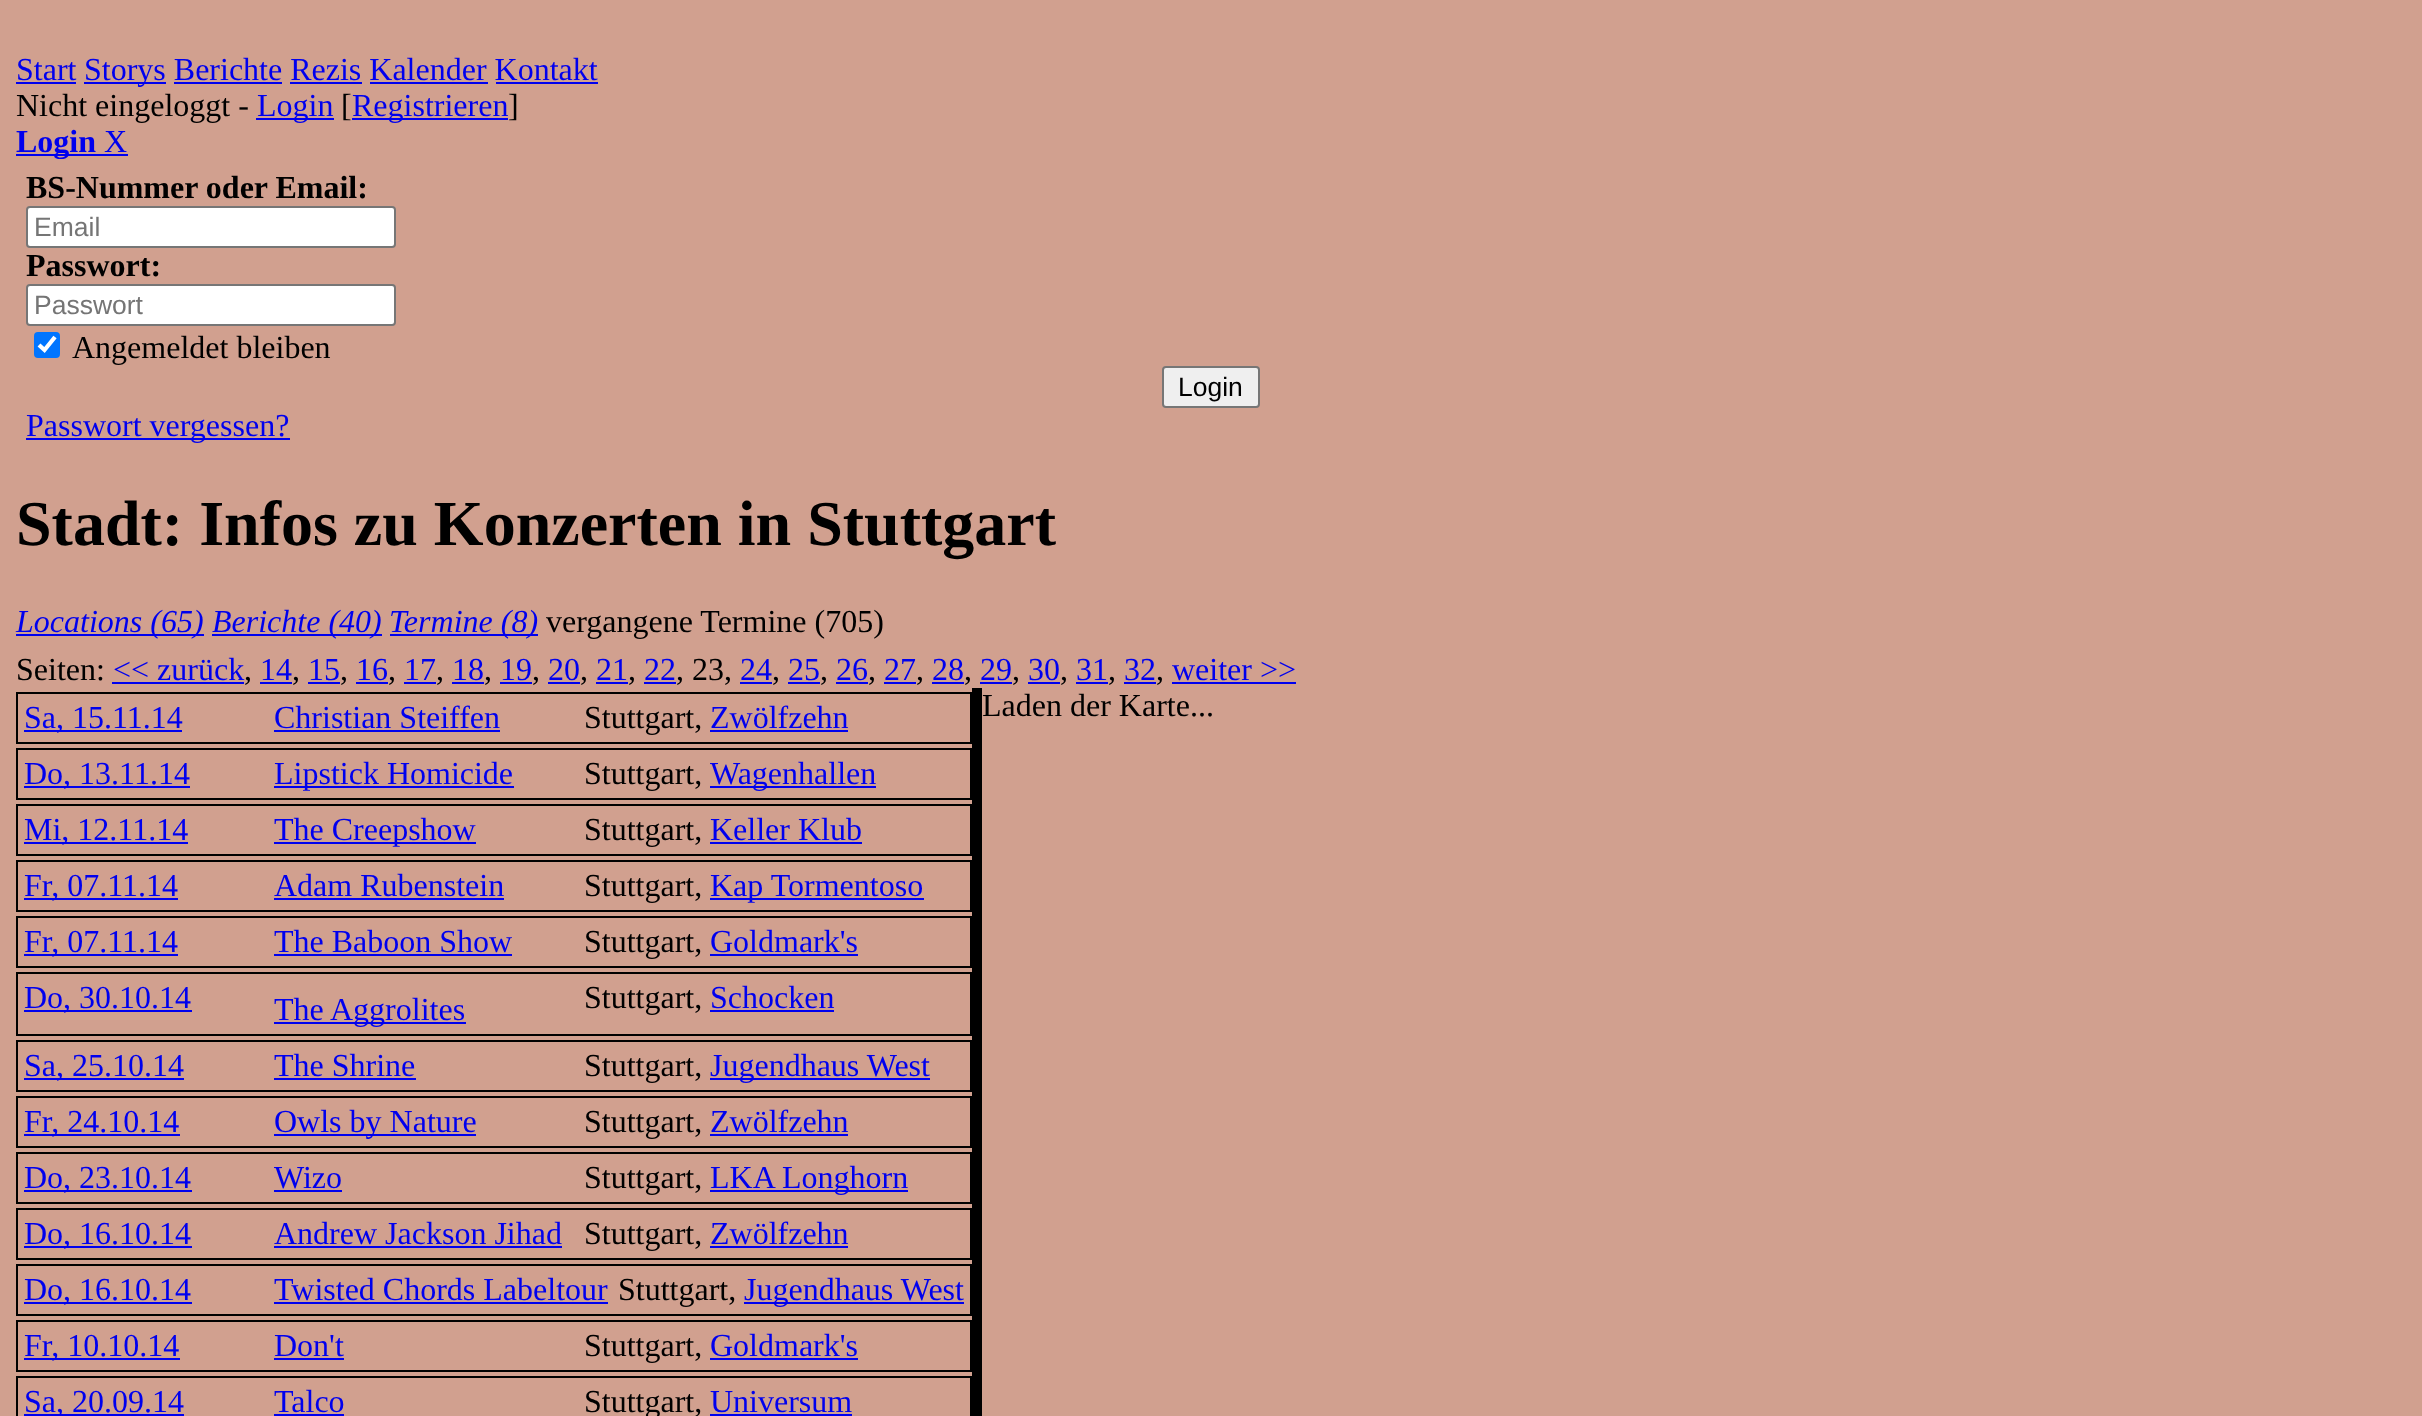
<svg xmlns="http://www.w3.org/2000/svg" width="2422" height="1416">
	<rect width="100%" height="100%" fill="#D1A08F" />
	<text x="16" y="80" font-family="Liberation Serif" font-size="32" fill="#0000EE">Start</text>
	<rect x="16" y="82" width="60" height="2" fill="#0000EE" />
	<rect x="84" y="82" width="82" height="2" fill="#0000EE" />
	<text x="84" y="80" font-family="Liberation Serif" font-size="32" fill="#0000EE">Storys Berichte Rezis Kalender Kontakt</text>
	<rect x="174" y="82" width="108" height="2" fill="#0000EE" />
	<rect x="290" y="82" width="72" height="2" fill="#0000EE" />
	<rect x="370" y="82" width="118" height="2" fill="#0000EE" />
	<rect x="496" y="82" width="102" height="2" fill="#0000EE" />
	<text x="16" y="116" font-family="Liberation Serif" font-size="32" fill="#000000">Nicht eingeloggt -</text>
	<rect x="256" y="118" width="78" height="2" fill="#0000EE" />
	<text x="257" y="116" font-family="Liberation Serif" font-size="32" fill="#0000EE">Login</text>
	<text x="341" y="116" font-family="Liberation Serif" font-size="32" fill="#000000">[</text>
	<rect x="352" y="118" width="156" height="2" fill="#0000EE" />
	<text x="352" y="116" font-family="Liberation Serif" font-size="32" fill="#0000EE">Registrieren</text>
	<text x="508" y="116" font-family="Liberation Serif" font-size="32" fill="#000000">]</text>
	<rect x="16" y="154" width="112" height="2" fill="#0000EE" />
	<text x="16" y="152" font-family="Liberation Serif" font-size="32" font-weight="700" fill="#0000EE">Login</text>
	<text x="104" y="152" font-family="Liberation Serif" font-size="32" fill="#0000EE">X</text>
	<text x="26" y="198" font-family="Liberation Serif" font-size="32" font-weight="700" fill="#000000">BS-Nummer oder Email:</text>
	<rect x="27" y="207" width="368" height="40" rx="3" fill="#FFFFFF" stroke="#767676" stroke-width="2" />
	<text x="34" y="236" font-family="Liberation Sans" font-size="26.5" fill="#757575">Email</text>
	<text x="26" y="276" font-family="Liberation Serif" font-size="32" font-weight="700" fill="#000000">Passwort:</text>
	<rect x="27" y="285" width="368" height="40" rx="3" fill="#FFFFFF" stroke="#767676" stroke-width="2" />
	<text x="34" y="314" font-family="Liberation Sans" font-size="26.5" fill="#757575">Passwort</text>
	<rect x="34" y="332" width="26" height="26" rx="4" fill="#0075FF" />
	<path d="M39 345L44.5 350L55 337" fill="none" stroke="#FFFFFF" stroke-width="4.2" />
	<text x="72" y="358" font-family="Liberation Serif" font-size="32" fill="#000000">Angemeldet bleiben</text>
	<rect x="1163" y="367" width="96" height="40" rx="3" fill="#EFEFEF" stroke="#767676" stroke-width="2" />
	<text x="1178" y="396" font-family="Liberation Sans" font-size="26.5" fill="#000000">Login</text>
	<rect x="26" y="438" width="264" height="2" fill="#0000EE" />
	<text x="26" y="436" font-family="Liberation Serif" font-size="32" fill="#0000EE">Passwort vergessen?</text>
	<text x="16" y="545" font-family="Liberation Serif" font-size="64" font-weight="700" fill="#000000">Stadt: Infos zu Konzerten in Stuttgart</text>
	<rect x="16" y="634" width="188" height="2" fill="#0000EE" />
	<text x="16" y="632" font-family="Liberation Serif" font-size="32" font-style="italic" fill="#0000EE">Locations (65)</text>
	<rect x="212" y="634" width="170" height="2" fill="#0000EE" />
	<text x="212" y="632" font-family="Liberation Serif" font-size="32" font-style="italic" fill="#0000EE">Berichte (40)</text>
	<rect x="390" y="634" width="148" height="2" fill="#0000EE" />
	<text x="389" y="632" font-family="Liberation Serif" font-size="32" font-style="italic" fill="#0000EE">Termine (8)</text>
	<g font-family="Liberation Serif" font-size="32" fill="#000000">
		<text x="546" y="632">vergangene Termine (705)</text>
		<text x="16" y="680">Seiten:</text>
	</g>
	<text x="113" y="680" font-family="Liberation Serif" font-size="32" fill="#0000EE">&lt;&lt; zurück</text>
	<rect x="112" y="682" width="132" height="2" fill="#0000EE" />
	<text x="244" y="680" font-family="Liberation Serif" font-size="32" fill="#000000">,</text>
	<text x="260" y="680" font-family="Liberation Serif" font-size="32" fill="#0000EE">14</text>
	<rect x="260" y="682" width="32" height="2" fill="#0000EE" />
	<text x="292" y="680" font-family="Liberation Serif" font-size="32" fill="#000000">,</text>
	<text x="308" y="680" font-family="Liberation Serif" font-size="32" fill="#0000EE">15</text>
	<rect x="308" y="682" width="32" height="2" fill="#0000EE" />
	<text x="340" y="680" font-family="Liberation Serif" font-size="32" fill="#000000">,</text>
	<text x="356" y="680" font-family="Liberation Serif" font-size="32" fill="#0000EE">16</text>
	<rect x="356" y="682" width="32" height="2" fill="#0000EE" />
	<text x="388" y="680" font-family="Liberation Serif" font-size="32" fill="#000000">,</text>
	<text x="404" y="680" font-family="Liberation Serif" font-size="32" fill="#0000EE">17</text>
	<rect x="404" y="682" width="32" height="2" fill="#0000EE" />
	<text x="436" y="680" font-family="Liberation Serif" font-size="32" fill="#000000">,</text>
	<text x="452" y="680" font-family="Liberation Serif" font-size="32" fill="#0000EE">18</text>
	<rect x="452" y="682" width="32" height="2" fill="#0000EE" />
	<text x="484" y="680" font-family="Liberation Serif" font-size="32" fill="#000000">,</text>
	<text x="500" y="680" font-family="Liberation Serif" font-size="32" fill="#0000EE">19</text>
	<rect x="500" y="682" width="32" height="2" fill="#0000EE" />
	<text x="532" y="680" font-family="Liberation Serif" font-size="32" fill="#000000">,</text>
	<text x="548" y="680" font-family="Liberation Serif" font-size="32" fill="#0000EE">20</text>
	<rect x="548" y="682" width="32" height="2" fill="#0000EE" />
	<text x="580" y="680" font-family="Liberation Serif" font-size="32" fill="#000000">,</text>
	<text x="596" y="680" font-family="Liberation Serif" font-size="32" fill="#0000EE">21</text>
	<rect x="596" y="682" width="32" height="2" fill="#0000EE" />
	<text x="628" y="680" font-family="Liberation Serif" font-size="32" fill="#000000">,</text>
	<text x="644" y="680" font-family="Liberation Serif" font-size="32" fill="#0000EE">22</text>
	<rect x="644" y="682" width="32" height="2" fill="#0000EE" />
	<text x="676" y="680" font-family="Liberation Serif" font-size="32" fill="#000000">, 23,</text>
	<text x="740" y="680" font-family="Liberation Serif" font-size="32" fill="#0000EE">24</text>
	<rect x="740" y="682" width="32" height="2" fill="#0000EE" />
	<text x="772" y="680" font-family="Liberation Serif" font-size="32" fill="#000000">,</text>
	<text x="788" y="680" font-family="Liberation Serif" font-size="32" fill="#0000EE">25</text>
	<rect x="788" y="682" width="32" height="2" fill="#0000EE" />
	<text x="820" y="680" font-family="Liberation Serif" font-size="32" fill="#000000">,</text>
	<text x="836" y="680" font-family="Liberation Serif" font-size="32" fill="#0000EE">26</text>
	<rect x="836" y="682" width="32" height="2" fill="#0000EE" />
	<text x="868" y="680" font-family="Liberation Serif" font-size="32" fill="#000000">,</text>
	<text x="884" y="680" font-family="Liberation Serif" font-size="32" fill="#0000EE">27</text>
	<rect x="884" y="682" width="32" height="2" fill="#0000EE" />
	<text x="916" y="680" font-family="Liberation Serif" font-size="32" fill="#000000">,</text>
	<text x="932" y="680" font-family="Liberation Serif" font-size="32" fill="#0000EE">28</text>
	<rect x="932" y="682" width="32" height="2" fill="#0000EE" />
	<text x="964" y="680" font-family="Liberation Serif" font-size="32" fill="#000000">,</text>
	<text x="980" y="680" font-family="Liberation Serif" font-size="32" fill="#0000EE">29</text>
	<rect x="980" y="682" width="32" height="2" fill="#0000EE" />
	<text x="1012" y="680" font-family="Liberation Serif" font-size="32" fill="#000000">,</text>
	<text x="1028" y="680" font-family="Liberation Serif" font-size="32" fill="#0000EE">30</text>
	<rect x="1028" y="682" width="32" height="2" fill="#0000EE" />
	<text x="1060" y="680" font-family="Liberation Serif" font-size="32" fill="#000000">,</text>
	<text x="1076" y="680" font-family="Liberation Serif" font-size="32" fill="#0000EE">31</text>
	<rect x="1076" y="682" width="32" height="2" fill="#0000EE" />
	<text x="1108" y="680" font-family="Liberation Serif" font-size="32" fill="#000000">,</text>
	<text x="1124" y="680" font-family="Liberation Serif" font-size="32" fill="#0000EE">32</text>
	<rect x="1124" y="682" width="32" height="2" fill="#0000EE" />
	<text x="1156" y="680" font-family="Liberation Serif" font-size="32" fill="#000000">,</text>
	<text x="1172" y="680" font-family="Liberation Serif" font-size="32" fill="#0000EE">weiter &gt;&gt;</text>
	<rect x="1172" y="682" width="124" height="2" fill="#0000EE" />
	<rect x="17" y="693" width="954" height="50" fill="none" stroke="#000000" stroke-width="2" />
	<rect x="24" y="730" width="158" height="2" fill="#0000EE" />
	<g font-family="Liberation Serif" font-size="32" fill="#0000EE">
		<text x="24" y="728">Sa, 15.11.14</text>
		<text x="274" y="728">Christian Steiffen</text>
	</g>
	<rect x="274" y="730" width="226" height="2" fill="#0000EE" />
	<text x="584" y="728" font-family="Liberation Serif" font-size="32" fill="#000000">Stuttgart,</text>
	<text x="710" y="728" font-family="Liberation Serif" font-size="32" fill="#0000EE">Zwölfzehn</text>
	<rect x="710" y="730" width="138" height="2" fill="#0000EE" />
	<rect x="17" y="749" width="954" height="50" fill="none" stroke="#000000" stroke-width="2" />
	<rect x="24" y="786" width="166" height="2" fill="#0000EE" />
	<text x="24" y="784" font-family="Liberation Serif" font-size="32" fill="#0000EE">Do, 13.11.14</text>
	<rect x="274" y="786" width="240" height="2" fill="#0000EE" />
	<text x="274" y="784" font-family="Liberation Serif" font-size="32" fill="#0000EE">Lipstick Homicide</text>
	<text x="584" y="784" font-family="Liberation Serif" font-size="32" fill="#000000">Stuttgart,</text>
	<rect x="710" y="786" width="166" height="2" fill="#0000EE" />
	<text x="710" y="784" font-family="Liberation Serif" font-size="32" fill="#0000EE">Wagenhallen</text>
	<rect x="17" y="805" width="954" height="50" fill="none" stroke="#000000" stroke-width="2" />
	<rect x="24" y="842" width="164" height="2" fill="#0000EE" />
	<text x="24" y="840" font-family="Liberation Serif" font-size="32" fill="#0000EE">Mi, 12.11.14</text>
	<rect x="274" y="842" width="202" height="2" fill="#0000EE" />
	<text x="274" y="840" font-family="Liberation Serif" font-size="32" fill="#0000EE">The Creepshow</text>
	<text x="584" y="840" font-family="Liberation Serif" font-size="32" fill="#000000">Stuttgart,</text>
	<text x="710" y="840" font-family="Liberation Serif" font-size="32" fill="#0000EE">Keller Klub</text>
	<rect x="710" y="842" width="152" height="2" fill="#0000EE" />
	<rect x="17" y="861" width="954" height="50" fill="none" stroke="#000000" stroke-width="2" />
	<rect x="24" y="898" width="154" height="2" fill="#0000EE" />
	<g font-family="Liberation Serif" font-size="32" fill="#0000EE">
		<text x="24" y="896">Fr, 07.11.14</text>
		<text x="274" y="896">Adam Rubenstein</text>
	</g>
	<rect x="274" y="898" width="230" height="2" fill="#0000EE" />
	<text x="584" y="896" font-family="Liberation Serif" font-size="32" fill="#000000">Stuttgart,</text>
	<rect x="710" y="898" width="214" height="2" fill="#0000EE" />
	<text x="710" y="896" font-family="Liberation Serif" font-size="32" fill="#0000EE">Kap Tormentoso</text>
	<rect x="17" y="917" width="954" height="50" fill="none" stroke="#000000" stroke-width="2" />
	<rect x="24" y="954" width="154" height="2" fill="#0000EE" />
	<g font-family="Liberation Serif" font-size="32" fill="#0000EE">
		<text x="24" y="952">Fr, 07.11.14</text>
		<text x="274" y="952">The Baboon Show</text>
	</g>
	<rect x="274" y="954" width="238" height="2" fill="#0000EE" />
	<text x="584" y="952" font-family="Liberation Serif" font-size="32" fill="#000000">Stuttgart,</text>
	<text x="710" y="952" font-family="Liberation Serif" font-size="32" fill="#0000EE">Goldmark's</text>
	<rect x="710" y="954" width="148" height="2" fill="#0000EE" />
	<rect x="17" y="973" width="954" height="62" fill="none" stroke="#000000" stroke-width="2" />
	<rect x="24" y="1010" width="168" height="2" fill="#0000EE" />
	<text x="24" y="1008" font-family="Liberation Serif" font-size="32" fill="#0000EE">Do, 30.10.14</text>
	<rect x="274" y="1022" width="192" height="2" fill="#0000EE" />
	<text x="274" y="1020" font-family="Liberation Serif" font-size="32" fill="#0000EE">The Aggrolites</text>
	<text x="584" y="1008" font-family="Liberation Serif" font-size="32" fill="#000000">Stuttgart,</text>
	<text x="710" y="1008" font-family="Liberation Serif" font-size="32" fill="#0000EE">Schocken</text>
	<rect x="710" y="1010" width="124" height="2" fill="#0000EE" />
	<rect x="17" y="1041" width="954" height="50" fill="none" stroke="#000000" stroke-width="2" />
	<rect x="24" y="1078" width="160" height="2" fill="#0000EE" />
	<g font-family="Liberation Serif" font-size="32" fill="#0000EE">
		<text x="24" y="1076">Sa, 25.10.14</text>
		<text x="274" y="1076">The Shrine</text>
	</g>
	<rect x="274" y="1078" width="142" height="2" fill="#0000EE" />
	<text x="584" y="1076" font-family="Liberation Serif" font-size="32" fill="#000000">Stuttgart,</text>
	<rect x="710" y="1078" width="220" height="2" fill="#0000EE" />
	<text x="710" y="1076" font-family="Liberation Serif" font-size="32" fill="#0000EE">Jugendhaus West</text>
	<rect x="17" y="1097" width="954" height="50" fill="none" stroke="#000000" stroke-width="2" />
	<rect x="24" y="1134" width="156" height="2" fill="#0000EE" />
	<text x="24" y="1132" font-family="Liberation Serif" font-size="32" fill="#0000EE">Fr, 24.10.14</text>
	<rect x="274" y="1134" width="202" height="2" fill="#0000EE" />
	<text x="274" y="1132" font-family="Liberation Serif" font-size="32" fill="#0000EE">Owls by Nature</text>
	<text x="584" y="1132" font-family="Liberation Serif" font-size="32" fill="#000000">Stuttgart,</text>
	<text x="710" y="1132" font-family="Liberation Serif" font-size="32" fill="#0000EE">Zwölfzehn</text>
	<rect x="710" y="1134" width="138" height="2" fill="#0000EE" />
	<rect x="17" y="1153" width="954" height="50" fill="none" stroke="#000000" stroke-width="2" />
	<rect x="24" y="1190" width="168" height="2" fill="#0000EE" />
	<g font-family="Liberation Serif" font-size="32" fill="#0000EE">
		<text x="24" y="1188">Do, 23.10.14</text>
		<text x="274" y="1188">Wizo</text>
	</g>
	<rect x="274" y="1190" width="68" height="2" fill="#0000EE" />
	<text x="584" y="1188" font-family="Liberation Serif" font-size="32" fill="#000000">Stuttgart,</text>
	<rect x="710" y="1190" width="198" height="2" fill="#0000EE" />
	<text x="710" y="1188" font-family="Liberation Serif" font-size="32" fill="#0000EE">LKA Longhorn</text>
	<rect x="17" y="1209" width="954" height="50" fill="none" stroke="#000000" stroke-width="2" />
	<rect x="24" y="1246" width="168" height="2" fill="#0000EE" />
	<g font-family="Liberation Serif" font-size="32" fill="#0000EE">
		<text x="24" y="1244">Do, 16.10.14</text>
		<text x="274" y="1244">Andrew Jackson Jihad</text>
	</g>
	<rect x="274" y="1246" width="288" height="2" fill="#0000EE" />
	<text x="584" y="1244" font-family="Liberation Serif" font-size="32" fill="#000000">Stuttgart,</text>
	<text x="710" y="1244" font-family="Liberation Serif" font-size="32" fill="#0000EE">Zwölfzehn</text>
	<rect x="710" y="1246" width="138" height="2" fill="#0000EE" />
	<rect x="17" y="1265" width="954" height="50" fill="none" stroke="#000000" stroke-width="2" />
	<rect x="24" y="1302" width="168" height="2" fill="#0000EE" />
	<g font-family="Liberation Serif" font-size="32" fill="#0000EE">
		<text x="24" y="1300">Do, 16.10.14</text>
		<text x="274" y="1300">Twisted Chords Labeltour</text>
	</g>
	<rect x="274" y="1302" width="334" height="2" fill="#0000EE" />
	<text x="618" y="1300" font-family="Liberation Serif" font-size="32" fill="#000000">Stuttgart,</text>
	<rect x="744" y="1302" width="220" height="2" fill="#0000EE" />
	<text x="744" y="1300" font-family="Liberation Serif" font-size="32" fill="#0000EE">Jugendhaus West</text>
	<rect x="17" y="1321" width="954" height="50" fill="none" stroke="#000000" stroke-width="2" />
	<rect x="24" y="1358" width="156" height="2" fill="#0000EE" />
	<g font-family="Liberation Serif" font-size="32" fill="#0000EE">
		<text x="24" y="1356">Fr, 10.10.14</text>
		<text x="274" y="1356">Don't</text>
	</g>
	<rect x="274" y="1358" width="70" height="2" fill="#0000EE" />
	<text x="584" y="1356" font-family="Liberation Serif" font-size="32" fill="#000000">Stuttgart,</text>
	<text x="710" y="1356" font-family="Liberation Serif" font-size="32" fill="#0000EE">Goldmark's</text>
	<rect x="710" y="1358" width="148" height="2" fill="#0000EE" />
	<rect x="17" y="1377" width="954" height="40" fill="none" stroke="#000000" stroke-width="2" />
	<rect x="24" y="1414" width="160" height="2" fill="#0000EE" />
	<g font-family="Liberation Serif" font-size="32" fill="#0000EE">
		<text x="24" y="1412">Sa, 20.09.14</text>
		<text x="274" y="1412">Talco</text>
	</g>
	<rect x="274" y="1414" width="70" height="2" fill="#0000EE" />
	<text x="584" y="1412" font-family="Liberation Serif" font-size="32" fill="#000000">Stuttgart,</text>
	<text x="710" y="1412" font-family="Liberation Serif" font-size="32" fill="#0000EE">Universum</text>
	<rect x="710" y="1414" width="142" height="2" fill="#0000EE" />
	<rect x="972" y="688" width="10" height="728" fill="#000000" />
	<text x="982" y="716" font-family="Liberation Serif" font-size="32" fill="#000000">Laden der Karte...</text>
</svg>
